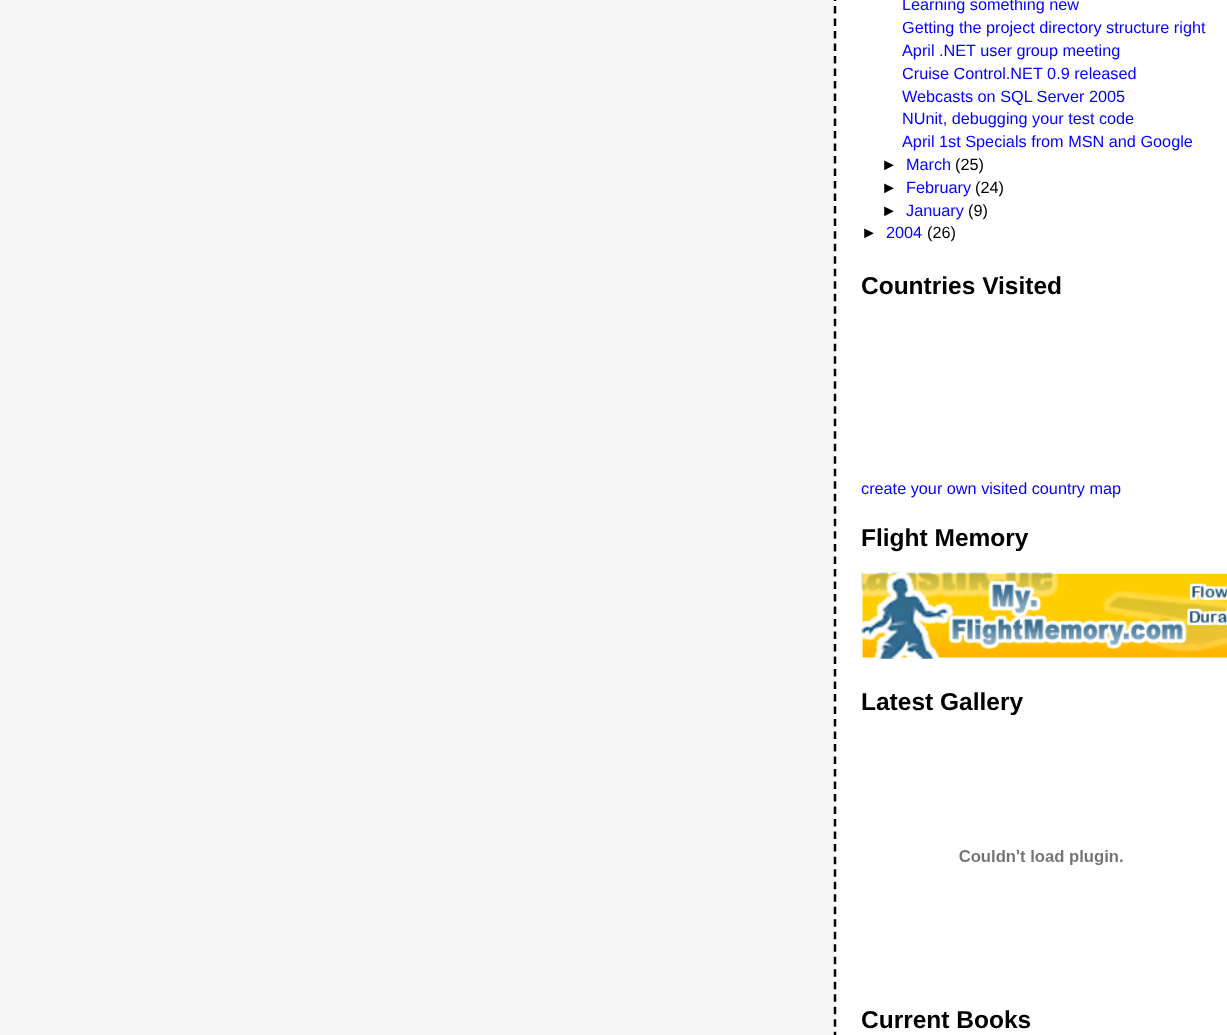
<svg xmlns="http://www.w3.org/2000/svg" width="1227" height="1035">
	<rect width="100%" height="100%" fill="#F5F5F5" />
	<rect x="834" y="0" width="393" height="1035" fill="#FFFFFF" />
	<path d="M835-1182.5V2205" fill="none" stroke="#000000" stroke-width="2.5" stroke-dasharray="7.5 5.01" />
	<g font-family="Liberation Sans" font-size="16.25" fill="#0000FF">
		<text x="902" y="10">Learning something new</text>
		<text x="902" y="33">Getting the project directory structure right</text>
		<text x="902" y="56">April .NET user group meeting</text>
		<text x="902" y="79">Cruise Control.NET 0.9 released</text>
		<text x="902" y="102">Webcasts on SQL Server 2005</text>
		<text x="902" y="124">NUnit, debugging your test code</text>
		<text x="902" y="147">April 1st Specials from MSN and Google</text>
	</g>
	<text x="881" y="170" font-family="Liberation Sans" font-size="16.25" fill="#000000">►</text>
	<text x="906" y="170" font-family="Liberation Sans" font-size="16.25" fill="#0000FF">March</text>
	<g font-family="Liberation Sans" font-size="16.25" fill="#000000">
		<text x="955" y="170">(25)</text>
		<text x="881" y="193">►</text>
	</g>
	<text x="906" y="193" font-family="Liberation Sans" font-size="16.25" fill="#0000FF">February</text>
	<g font-family="Liberation Sans" font-size="16.25" fill="#000000">
		<text x="975" y="193">(24)</text>
		<text x="881" y="216">►</text>
	</g>
	<text x="906" y="216" font-family="Liberation Sans" font-size="16.25" fill="#0000FF">January</text>
	<g font-family="Liberation Sans" font-size="16.25" fill="#000000">
		<text x="968" y="216">(9)</text>
		<text x="861" y="238">►</text>
	</g>
	<text x="886" y="238" font-family="Liberation Sans" font-size="16.25" fill="#0000FF">2004</text>
	<text x="927" y="238" font-family="Liberation Sans" font-size="16.25" fill="#000000">(26)</text>
	<text x="861" y="294" font-family="Liberation Sans" font-size="24.5" font-weight="700" fill="#000000">Countries Visited</text>
	<text x="861" y="494" font-family="Liberation Sans" font-size="16.25" fill="#0000FF">create your own visited country map</text>
	<text x="861" y="546" font-family="Liberation Sans" font-size="24.5" font-weight="700" fill="#000000">Flight Memory</text>
	<image x="861" y="572" width="366" height="87" href="assets/img1.png" />
	<text x="861" y="710" font-family="Liberation Sans" font-size="24.5" font-weight="700" fill="#000000">Latest Gallery</text>
	<image x="959" y="850" width="164" height="15" href="assets/img2.png" />
	<text x="861" y="1028" font-family="Liberation Sans" font-size="24.5" font-weight="700" fill="#000000">Current Books</text>
</svg>
